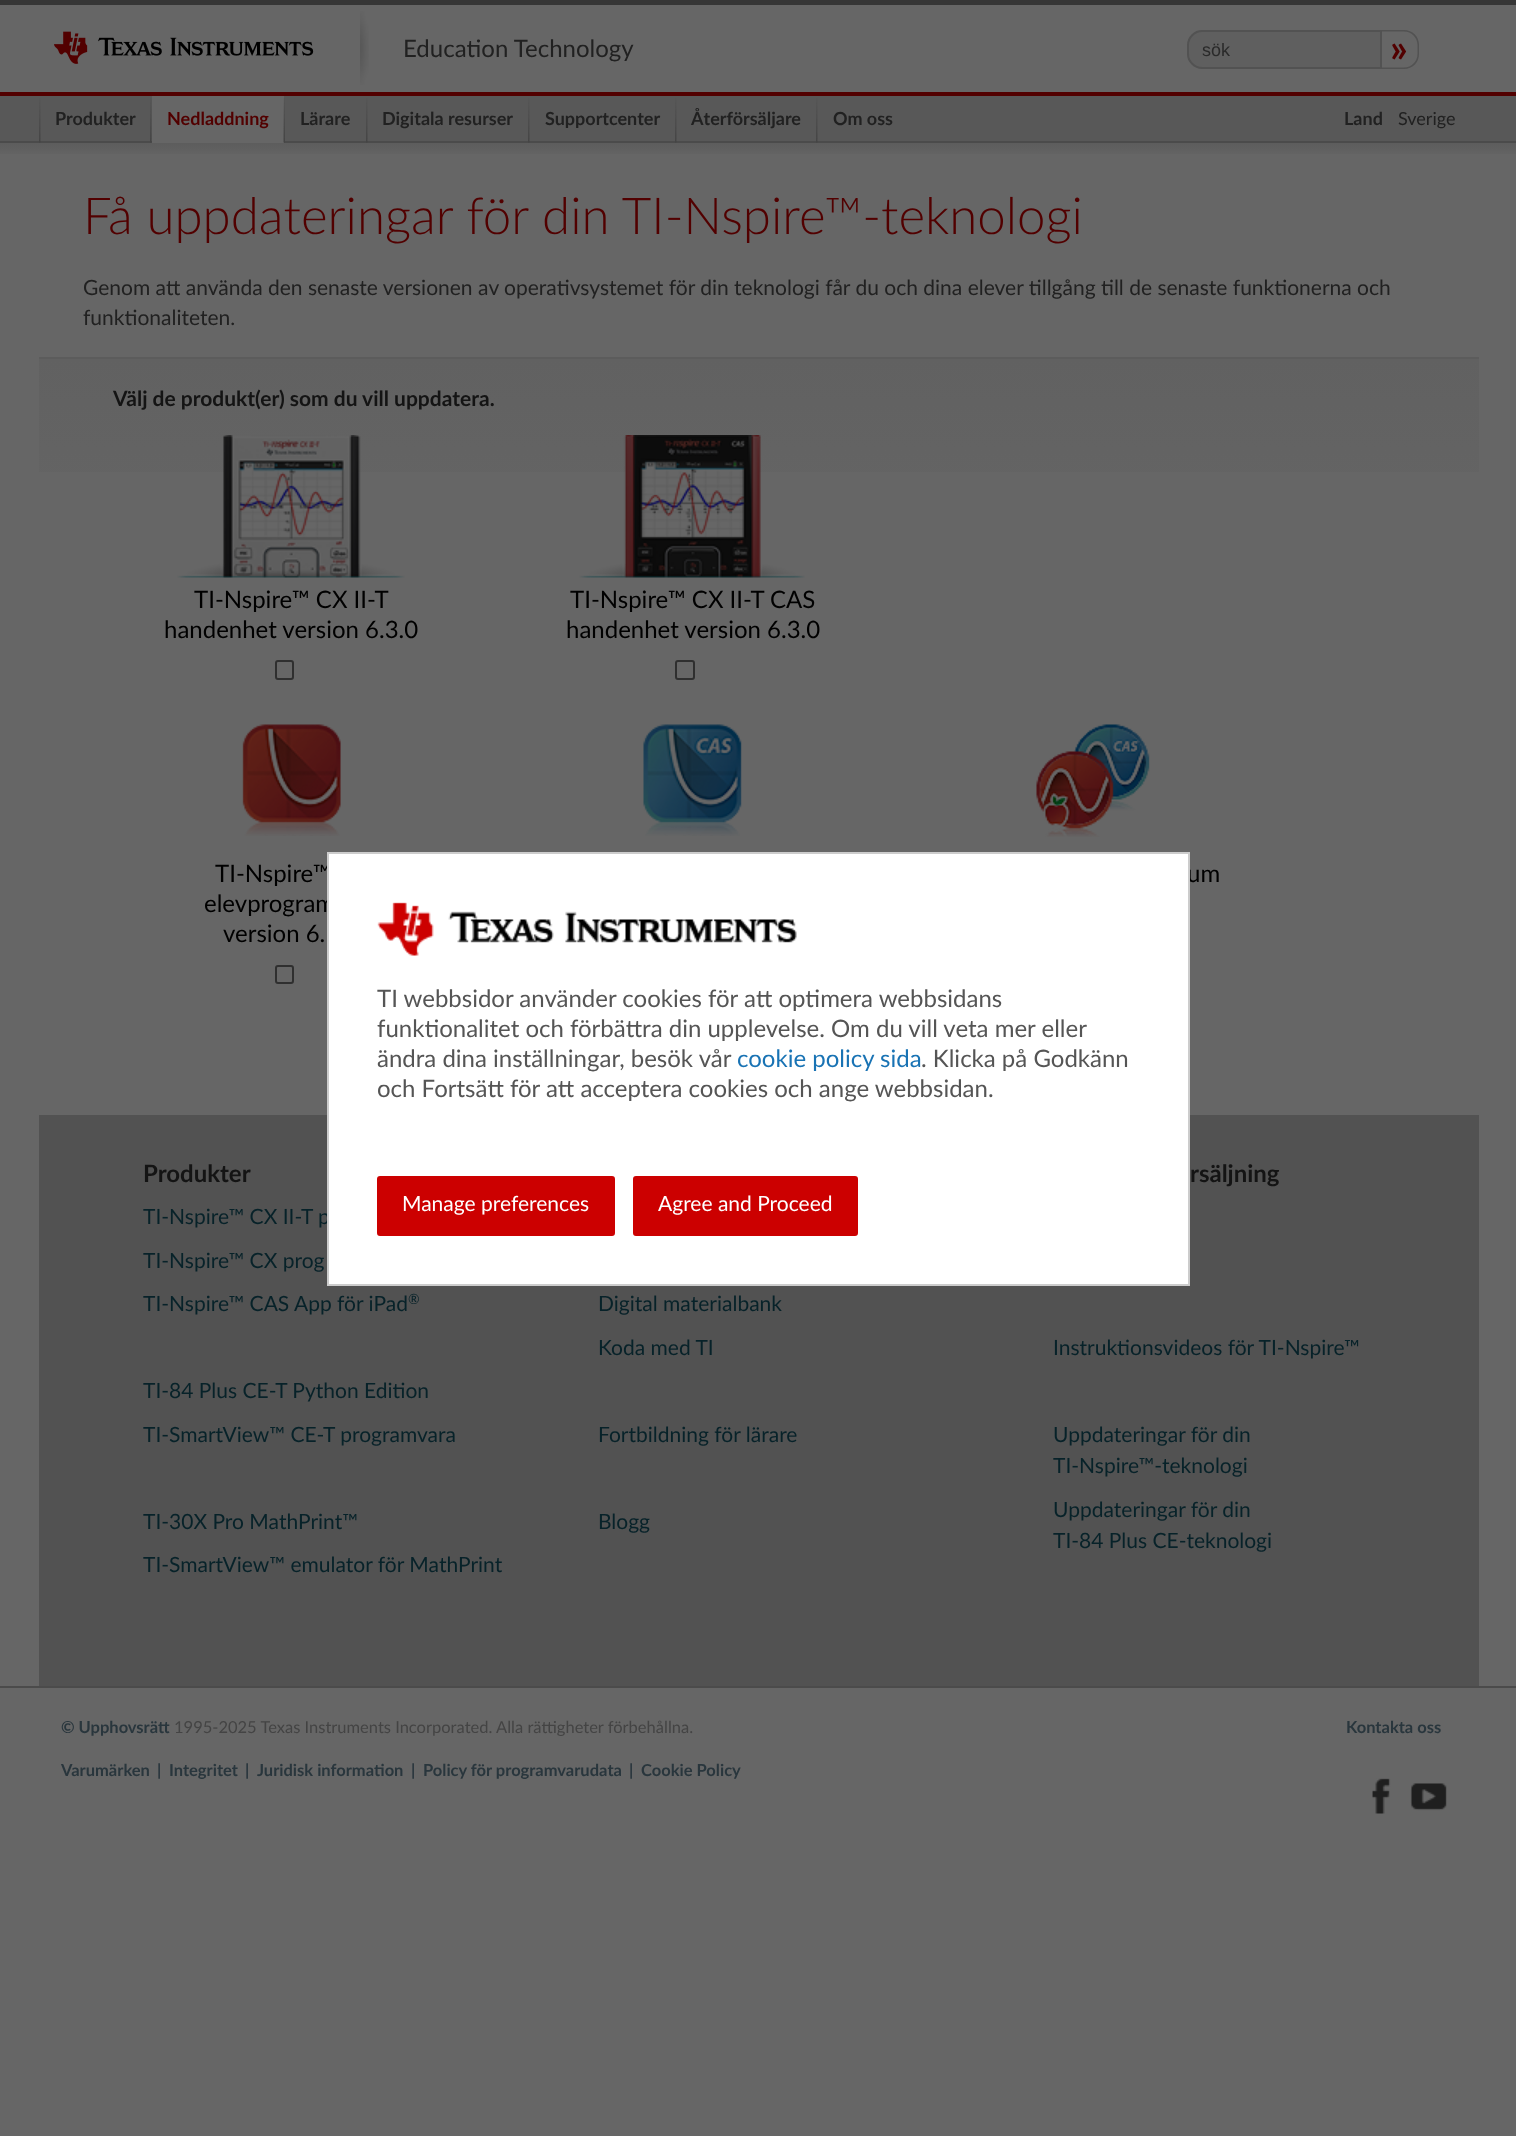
<svg xmlns="http://www.w3.org/2000/svg" width="1516" height="2136">
	<defs>
		<linearGradient id="g1" gradientUnits="userSpaceOnUse" x1="758" y1="142" x2="758" y2="158"><stop offset="0" stop-color="#5C5C5C" /><stop offset="0.25" stop-color="#5E5E5E" /><stop offset="1" stop-color="#666666" /></linearGradient>
		<linearGradient id="g2" gradientUnits="userSpaceOnUse" x1="759" y1="358" x2="759" y2="1115"><stop offset="0" stop-color="#616161" /><stop offset="0.3" stop-color="#666666" /></linearGradient>
	</defs>
	<rect width="100%" height="100%" fill="#666666" />
	<rect x="0" y="0" width="1516" height="5" fill="#363636" />
	<rect x="0" y="92" width="1516" height="4" fill="#520000" />
	<image x="360" y="11" width="9" height="74" href="assets/img1.png" />
	<image x="54" y="31" width="260" height="33" href="assets/img2.png" />
	<text x="403" y="57" font-family="Lato" font-size="24" fill="#212121">Education Technology</text>
	<path d="M1202 31H1381V68H1202C1194.5 68 1188 61.5 1188 54V45C1188 37.5 1194.5 31 1202 31Z" fill="#5F5F5F" stroke="#525252" stroke-width="2" />
	<text x="1202" y="56" font-family="Liberation Sans" font-size="18" fill="#2A2A2A">sök</text>
	<path d="M1381.5 30H1404C1412.5 30 1419 36.5 1419 45V54C1419 62.5 1412.5 69 1404 69H1381.5ZM1381.5 31.5H1404C1411.5 31.5 1417.5 37.5 1417.5 45V54C1417.5 61.5 1411.5 67.5 1404 67.5H1381.5Z" fill="#525252" fill-rule="evenodd" />
	<text x="1390" y="62" font-family="Lato" font-size="39" font-weight="700" fill="#520000">»</text>
	<rect x="0" y="96" width="1516" height="45" fill="#585858" />
	<rect x="0" y="141" width="1516" height="2" fill="#4B4B4B" />
	<image x="39" y="98" width="2" height="45" href="assets/img3.png" />
	<text x="55" y="125" font-family="Lato" font-size="18" font-weight="700" fill="#212121">Produkter</text>
	<rect x="152" y="96" width="132" height="47" fill="#666666" />
	<image x="150" y="98" width="2" height="45" href="assets/img4.png" />
	<text x="167" y="125" font-family="Lato" font-size="18" font-weight="700" fill="#520000">Nedladdning</text>
	<image x="283" y="98" width="2" height="45" href="assets/img5.png" />
	<text x="300" y="125" font-family="Lato" font-size="18" font-weight="700" fill="#212121">Lärare</text>
	<image x="366" y="98" width="2" height="45" href="assets/img6.png" />
	<text x="382" y="125" font-family="Lato" font-size="18" font-weight="700" fill="#212121">Digitala resurser</text>
	<image x="528" y="98" width="2" height="45" href="assets/img7.png" />
	<text x="545" y="125" font-family="Lato" font-size="18" font-weight="700" fill="#212121">Supportcenter</text>
	<image x="675" y="98" width="2" height="45" href="assets/img3.png" />
	<text x="691" y="125" font-family="Lato" font-size="18" font-weight="700" fill="#212121">Återförsäljare</text>
	<image x="816" y="98" width="2" height="45" href="assets/img4.png" />
	<g font-family="Lato" font-size="18" font-weight="700" fill="#212121">
		<text x="833" y="125">Om oss</text>
		<text x="1344" y="125">Land</text>
	</g>
	<text x="1398" y="125" font-family="Lato" font-size="18" fill="#212121">Sverige</text>
	<rect x="0" y="143" width="1516" height="11" fill="url(#g1)" />
	<rect x="39" y="357" width="1440" height="2" fill="#5C5C5C" />
	<text x="83" y="234" font-family="Lato" font-size="51" font-weight="300" fill="#520000">Få uppdateringar för din TI-Nspire™-teknologi</text>
	<g font-family="Lato" font-size="21" fill="#212121">
		<text x="83" y="295">Genom att använda den senaste versionen av operativsystemet för din teknologi får du och dina elever tillgång till de senaste funktionerna och</text>
		<text x="83" y="325">funktionaliteten.</text>
	</g>
	<rect x="39" y="359" width="1440" height="113" fill="url(#g2)" />
	<text x="113" y="406" font-family="Lato" font-size="21" font-weight="700" fill="#141414">Välj de produkt(er) som du vill uppdatera.</text>
	<image x="177" y="435" width="228" height="143" href="assets/img8.png" />
	<g font-family="Lato" font-size="24" fill="#000000">
		<text x="194" y="608">TI-Nspire™ CX II-T</text>
		<text x="164" y="638">handenhet version 6.3.0</text>
	</g>
	<rect x="276" y="661" width="17" height="18" rx="2" fill="none" stroke="#2F2F2F" stroke-width="2" />
	<image x="579" y="435" width="226" height="143" href="assets/img9.png" />
	<g font-family="Lato" font-size="24" fill="#000000">
		<text x="570" y="608">TI-Nspire™ CX II-T CAS</text>
		<text x="566" y="638">handenhet version 6.3.0</text>
	</g>
	<rect x="676" y="661" width="18" height="18" rx="2" fill="none" stroke="#2F2F2F" stroke-width="2" />
	<image x="643" y="724" width="99" height="112" href="assets/img10.png" />
	<image x="242" y="724" width="99" height="112" href="assets/img11.png" />
	<g font-family="Lato" font-size="24" fill="#000000">
		<text x="215" y="882">TI-Nspire™</text>
		<text x="204" y="912">elevprogram</text>
		<text x="223" y="942">version 6.</text>
	</g>
	<rect x="276" y="966" width="17" height="17" rx="2" fill="none" stroke="#2F2F2F" stroke-width="2" />
	<image x="1036" y="724" width="114" height="113" href="assets/img12.png" />
	<text x="1187" y="882" font-family="Lato" font-size="24" fill="#000000">um</text>
	<rect x="39" y="1115" width="1440" height="571" fill="#525252" />
	<text x="143" y="1224" font-family="Lato" font-size="21" fill="#072229">TI-Nspire™ CX II-T p</text>
	<rect x="328" y="853" width="861" height="432" fill="#FFFFFF" stroke="#CCCCCC" stroke-width="2" />
	<image x="377" y="902" width="420" height="54" href="assets/img13.png" />
	<g font-family="Lato" font-size="24" fill="#555555">
		<text x="377" y="1007">TI webbsidor använder cookies för att optimera webbsidans</text>
		<text x="377" y="1037">funktionalitet och förbättra din upplevelse. Om du vill veta mer eller</text>
		<text x="377" y="1067">ändra dina inställningar, besök vår</text>
	</g>
	<text x="737" y="1067" font-family="Lato" font-size="24" fill="#1973B4">cookie policy sida</text>
	<g font-family="Lato" font-size="24" fill="#555555">
		<text x="921" y="1067">. Klicka på Godkänn</text>
		<text x="377" y="1097">och Fortsätt för att acceptera cookies och ange webbsidan.</text>
	</g>
	<rect x="378" y="1177" width="236" height="58" rx="2" fill="#CC0000" stroke="#CC0000" stroke-width="2" />
	<text x="402" y="1211" font-family="Lato" font-size="21" fill="#FFFFFF">Manage preferences</text>
	<rect x="634" y="1177" width="223" height="58" rx="2" fill="#CC0000" stroke="#CC0000" stroke-width="2" />
	<text x="658" y="1211" font-family="Lato" font-size="21" fill="#FFFFFF">Agree and Proceed</text>
	<text x="143" y="1182" font-family="Lato" font-size="24" font-weight="700" fill="#141414">Produkter</text>
	<g font-family="Lato" font-size="21" fill="#072229">
		<text x="143" y="1268">TI-Nspire™ CX prog</text>
		<text x="143" y="1311">TI-Nspire™ CAS App för iPad</text>
	</g>
	<text x="408" y="1304" font-family="Lato" font-size="14" fill="#072229">®</text>
	<g font-family="Lato" font-size="21" fill="#072229">
		<text x="143" y="1398">TI-84 Plus CE-T Python Edition</text>
		<text x="143" y="1442">TI-SmartView™ CE-T programvara</text>
		<text x="143" y="1529">TI-30X Pro MathPrint™</text>
		<text x="143" y="1572">TI-SmartView™ emulator för MathPrint</text>
		<text x="598" y="1311">Digital materialbank</text>
		<text x="598" y="1355">Koda med TI</text>
		<text x="598" y="1442">Fortbildning för lärare</text>
		<text x="598" y="1529">Blogg</text>
	</g>
	<text x="1190" y="1182" font-family="Lato" font-size="24" font-weight="700" fill="#141414">rsäljning</text>
	<g font-family="Lato" font-size="21" fill="#072229">
		<text x="1053" y="1355">Instruktionsvideos för TI-Nspire™</text>
		<text x="1053" y="1442">Uppdateringar för din</text>
		<text x="1053" y="1473">TI-Nspire™-teknologi</text>
		<text x="1053" y="1517">Uppdateringar för din</text>
		<text x="1053" y="1548">TI-84 Plus CE-teknologi</text>
	</g>
	<rect x="0" y="1686" width="1516" height="2" fill="#4B4B4B" />
	<text x="61" y="1733" font-family="Lato" font-size="16.5" font-weight="700" fill="#29363D">© Upphovsrätt</text>
	<text x="174" y="1733" font-family="Lato" font-size="16.5" fill="#444444">1995-2025 Texas Instruments Incorporated. Alla rättigheter förbehållna.</text>
	<g font-family="Lato" font-size="16.5" font-weight="700" fill="#29363D">
		<text x="61" y="1776">Varumärken</text>
		<text x="157" y="1776">|</text>
		<text x="169" y="1776">Integritet</text>
		<text x="245" y="1776">|</text>
		<text x="257" y="1776">Juridisk information</text>
		<text x="411" y="1776">|</text>
		<text x="423" y="1776">Policy för programvarudata</text>
		<text x="629" y="1776">|</text>
		<text x="641" y="1776">Cookie Policy</text>
		<text x="1346" y="1733">Kontakta oss</text>
	</g>
	<image x="1372" y="1778" width="19" height="36" href="assets/img14.png" />
	<image x="1410" y="1783" width="37" height="28" href="assets/img15.png" />
</svg>
